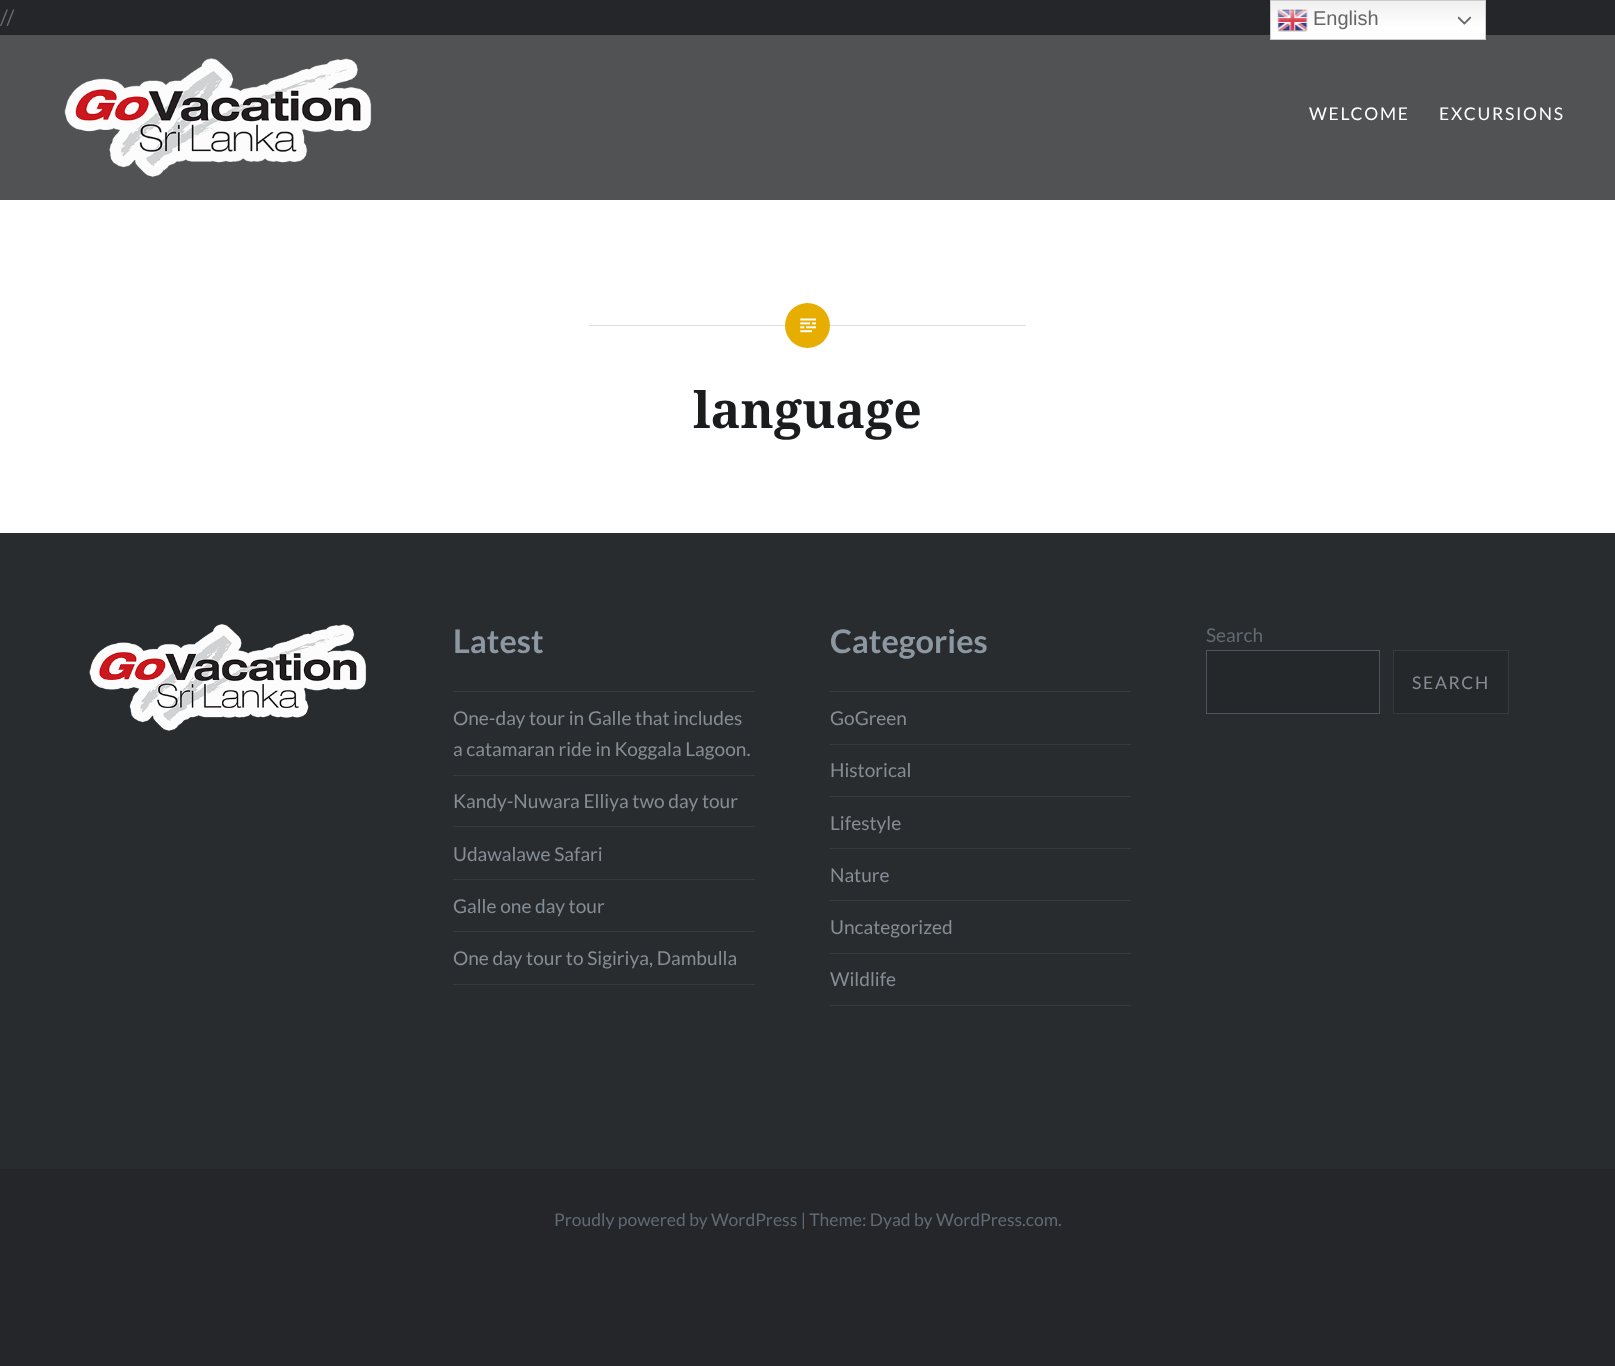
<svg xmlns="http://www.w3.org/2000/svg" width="1615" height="1366">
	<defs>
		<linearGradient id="g1" gradientUnits="userSpaceOnUse" x1="1378" y1="0" x2="1378" y2="40"><stop offset="0" stop-color="#EFEFEF" /><stop offset="0.7" stop-color="#FFFFFF" /></linearGradient>
	</defs>
	<rect width="100%" height="100%" fill="#242629" />
	<text x="0" y="25" font-family="Lato" font-size="21" fill="#6A6C6E">//</text>
	<rect x="0" y="35" width="1615" height="165" fill="#505254" />
	<rect x="1271" y="1" width="214" height="38" fill="url(#g1)" />
	<rect x="1270.5" y="0.5" width="215" height="39" fill="none" stroke="#CCCCCC" />
	<image x="1277" y="9" width="31" height="23" href="assets/img1.png" />
	<text x="1313" y="25" font-family="Liberation Sans" font-size="20" fill="#666666">English</text>
	<image x="1458" y="16" width="13" height="9" href="assets/img2.png" />
	<rect x="0" y="200" width="1615" height="333" fill="#FFFFFF" />
	<image x="64" y="58" width="308" height="120" href="assets/img3.png" />
	<g font-family="Lato" font-size="17.5" letter-spacing="1.75" fill="#FFFFFF">
		<text x="1309" y="120">WELCOME</text>
		<text x="1439" y="120">EXCURSIONS</text>
	</g>
	<rect x="589" y="325" width="437" height="1" fill="#E0E0E0" />
	<circle cx="807.5" cy="325.5" r="22.5" fill="#E7AE01" />
	<image x="800" y="318" width="16" height="15" href="assets/img4.png" />
	<text x="693" y="428" font-family="Noto Serif" font-size="50" font-weight="700" fill="#1A1C1E">language</text>
	<rect x="0" y="533" width="1615" height="636" fill="#292C2F" />
	<image x="89" y="624" width="278" height="107" href="assets/img5.png" />
	<text x="453" y="653" font-family="Lato" font-size="32.5" font-weight="700" fill="#8C97A2">Latest</text>
	<rect x="453" y="691" width="302" height="1" fill="#363B40" />
	<rect x="453" y="775" width="302" height="1" fill="#363B40" />
	<g font-family="Lato" font-size="19.1" fill="#858D95">
		<text x="453" y="725">One-day tour in Galle that includes</text>
		<text x="453" y="756">a catamaran ride in Koggala Lagoon.</text>
	</g>
	<rect x="453" y="826" width="302" height="1" fill="#363B40" />
	<text x="453" y="808" font-family="Lato" font-size="19.1" fill="#858D95">Kandy-Nuwara Elliya two day tour</text>
	<rect x="453" y="879" width="302" height="1" fill="#363B40" />
	<text x="453" y="861" font-family="Lato" font-size="19.1" fill="#858D95">Udawalawe Safari</text>
	<rect x="453" y="931" width="302" height="1" fill="#363B40" />
	<text x="453" y="913" font-family="Lato" font-size="19.1" fill="#858D95">Galle one day tour</text>
	<rect x="453" y="984" width="302" height="1" fill="#363B40" />
	<text x="453" y="965" font-family="Lato" font-size="19.1" fill="#858D95">One day tour to Sigiriya, Dambulla</text>
	<text x="830" y="653" font-family="Lato" font-size="32.5" font-weight="700" fill="#8C97A2">Categories</text>
	<rect x="830" y="691" width="301" height="1" fill="#363B40" />
	<rect x="830" y="744" width="301" height="1" fill="#363B40" />
	<text x="830" y="725" font-family="Lato" font-size="19.1" fill="#858D95">GoGreen</text>
	<rect x="830" y="796" width="301" height="1" fill="#363B40" />
	<text x="830" y="777" font-family="Lato" font-size="19.1" fill="#858D95">Historical</text>
	<rect x="830" y="848" width="301" height="1" fill="#363B40" />
	<text x="830" y="830" font-family="Lato" font-size="19.1" fill="#858D95">Lifestyle</text>
	<rect x="830" y="900" width="301" height="1" fill="#363B40" />
	<text x="830" y="882" font-family="Lato" font-size="19.1" fill="#858D95">Nature</text>
	<rect x="830" y="953" width="301" height="1" fill="#363B40" />
	<text x="830" y="934" font-family="Lato" font-size="19.1" fill="#858D95">Uncategorized</text>
	<rect x="830" y="1005" width="301" height="1" fill="#363B40" />
	<text x="830" y="986" font-family="Lato" font-size="19.1" fill="#858D95">Wildlife</text>
	<text x="1206" y="642" font-family="Lato" font-size="19.1" fill="#616A74">Search</text>
	<rect x="1206.5" y="650.5" width="173" height="63" fill="#25282A" stroke="#4D545B" />
	<rect x="1393.5" y="650.5" width="115" height="63" fill="#25282A" stroke="#363B40" />
	<text x="1412" y="689" font-family="Lato" font-size="17.5" letter-spacing="1.75" fill="#858D95">SEARCH</text>
	<text x="554" y="1226" font-family="Lato" font-size="17.5" fill="#616A74">Proudly powered by WordPress | Theme: Dyad by WordPress.com.</text>
</svg>
